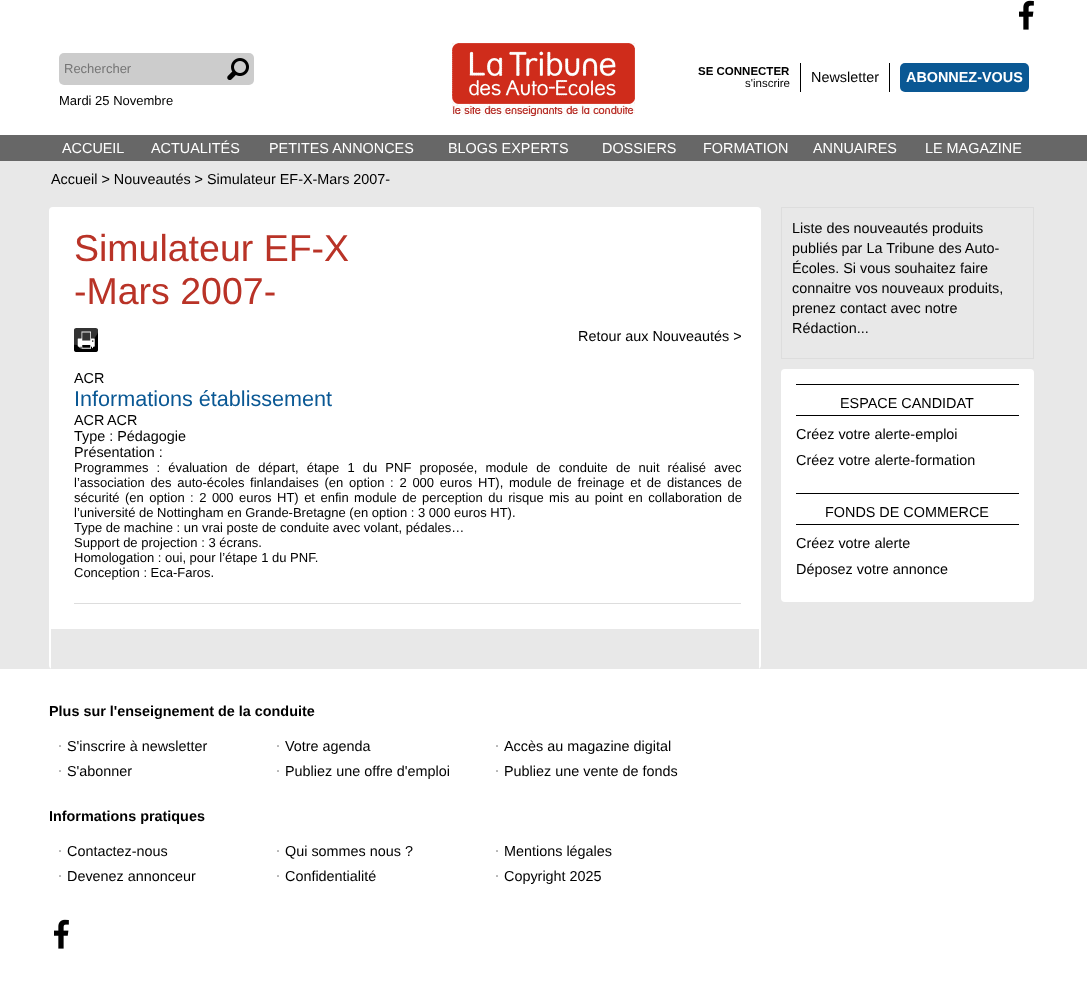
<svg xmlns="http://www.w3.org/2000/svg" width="1087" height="1007">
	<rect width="100%" height="100%" fill="#FFFFFF" />
	<image x="1019" y="0" width="15" height="30" href="assets/img1.png" />
	<rect x="59" y="53" width="195" height="32" rx="5" fill="#CCCCCC" />
	<text x="64" y="73" font-family="Liberation Sans" font-size="13" fill="#757575">Rechercher</text>
	<image x="227" y="58" width="22" height="22" href="assets/img2.png" />
	<image x="452" y="43" width="183" height="73" href="assets/img3.png" />
	<rect x="800" y="63" width="1" height="29" fill="#000000" />
	<text x="698" y="75" font-family="Liberation Sans" font-size="11.5" font-weight="700" fill="#000000">SE CONNECTER</text>
	<text x="745" y="87" font-family="Liberation Sans" font-size="11.5" fill="#000000">s'inscrire</text>
	<rect x="889" y="63" width="1" height="29" fill="#000000" />
	<text x="811" y="82" font-family="Liberation Sans" font-size="14.4" fill="#000000">Newsletter</text>
	<rect x="900" y="63" width="129" height="29" rx="5" fill="#0A5894" />
	<text x="906" y="82" font-family="Liberation Sans" font-size="14.4" font-weight="700" fill="#FFFFFF">ABONNEZ-VOUS</text>
	<text x="59" y="105" font-family="Liberation Sans" font-size="13" fill="#000000">Mardi 25 Novembre</text>
	<rect x="0" y="135" width="1087" height="26" fill="#676767" />
	<g font-family="Liberation Sans" font-size="14.4" fill="#FFFFFF">
		<text x="62" y="153">ACCUEIL</text>
		<text x="151" y="153">ACTUALITÉS</text>
		<text x="269" y="153">PETITES ANNONCES</text>
		<text x="448" y="153">BLOGS EXPERTS</text>
		<text x="602" y="153">DOSSIERS</text>
		<text x="703" y="153">FORMATION</text>
		<text x="813" y="153">ANNUAIRES</text>
		<text x="925" y="153">LE MAGAZINE</text>
	</g>
	<rect x="0" y="161" width="1087" height="508" fill="#E8E8E8" />
	<text x="51" y="184" font-family="Liberation Sans" font-size="14.4" fill="#000000">Accueil &gt; Nouveautés &gt; Simulateur EF-X-Mars 2007-</text>
	<rect x="49" y="207" width="712" height="462" rx="4" fill="#FFFFFF" />
	<rect x="51" y="629" width="708" height="40" fill="#E8E8E8" />
	<g font-family="Liberation Sans" font-size="37.5" fill="#B93327">
		<text x="74" y="261">Simulateur EF-X</text>
		<text x="74" y="304">-Mars 2007-</text>
	</g>
	<image x="74" y="328" width="24" height="24" href="assets/img4.png" />
	<g font-family="Liberation Sans" font-size="14.4" fill="#000000">
		<text x="578" y="341">Retour aux Nouveautés &gt;</text>
		<text x="74" y="383">ACR</text>
	</g>
	<text x="74" y="406" font-family="Liberation Sans" font-size="21.6" fill="#0A5894">Informations établissement</text>
	<g font-family="Liberation Sans" font-size="14.4" fill="#000000">
		<text x="74" y="425">ACR</text>
		<text x="107" y="425">ACR</text>
		<text x="74" y="441">Type : Pédagogie</text>
		<text x="74" y="457">Présentation :</text>
	</g>
	<g font-family="Liberation Sans" font-size="13" fill="#000000">
		<text x="74" y="472" word-spacing="4.5">Programmes : évaluation de départ, étape 1 du PNF proposée, module de conduite de nuit réalisé avec</text>
		<text x="74" y="487" word-spacing="2.1">l’association des auto-écoles finlandaises (en option : 2 000 euros HT), module de freinage et de distances de</text>
		<text x="74" y="502" word-spacing="1.85">sécurité (en option : 2 000 euros HT) et enfin module de perception du risque mis au point en collaboration de</text>
		<text x="74" y="517">l’université de Nottingham en Grande-Bretagne (en option : 3 000 euros HT).</text>
		<text x="74" y="532">Type de machine : un vrai poste de conduite avec volant, pédales…</text>
		<text x="74" y="547">Support de projection : 3 écrans.</text>
		<text x="74" y="562">Homologation : oui, pour l’étape 1 du PNF.</text>
		<text x="74" y="577">Conception : Eca-Faros.</text>
	</g>
	<rect x="74" y="603" width="667" height="1" fill="#DDDDDD" />
	<rect x="781.5" y="207.5" width="252" height="151" fill="none" stroke="#DDDDDD" />
	<g font-family="Liberation Sans" font-size="14.4" fill="#000000">
		<text x="792" y="233">Liste des nouveautés produits</text>
		<text x="792" y="253">publiés par La Tribune des Auto-</text>
		<text x="792" y="273">Écoles. Si vous souhaitez faire</text>
		<text x="792" y="293">connaitre vos nouveaux produits,</text>
		<text x="792" y="313">prenez contact avec notre</text>
		<text x="792" y="333">Rédaction...</text>
	</g>
	<rect x="781" y="369" width="253" height="233" rx="4" fill="#FFFFFF" />
	<rect x="796" y="384" width="223" height="1" fill="#000000" />
	<rect x="796" y="415" width="223" height="1" fill="#000000" />
	<g font-family="Liberation Sans" font-size="14.4" fill="#000000">
		<text x="840" y="408">ESPACE CANDIDAT</text>
		<text x="796" y="439">Créez votre alerte-emploi</text>
		<text x="796" y="465">Créez votre alerte-formation</text>
	</g>
	<rect x="796" y="493" width="223" height="1" fill="#000000" />
	<rect x="796" y="524" width="223" height="1" fill="#000000" />
	<g font-family="Liberation Sans" font-size="14.4" fill="#000000">
		<text x="825" y="517">FONDS DE COMMERCE</text>
		<text x="796" y="548">Créez votre alerte</text>
		<text x="796" y="574">Déposez votre annonce</text>
	</g>
	<text x="49" y="716" font-family="Liberation Sans" font-size="14.4" font-weight="700" fill="#000000">Plus sur l'enseignement de la conduite</text>
	<image x="59" y="745" width="2" height="2" href="assets/img5.png" />
	<text x="67" y="751" font-family="Liberation Sans" font-size="14.4" fill="#000000">S'inscrire à newsletter</text>
	<image x="277" y="745" width="2" height="2" href="assets/img5.png" />
	<text x="285" y="751" font-family="Liberation Sans" font-size="14.4" fill="#000000">Votre agenda</text>
	<image x="496" y="745" width="2" height="2" href="assets/img5.png" />
	<text x="504" y="751" font-family="Liberation Sans" font-size="14.4" fill="#000000">Accès au magazine digital</text>
	<image x="59" y="770" width="2" height="2" href="assets/img5.png" />
	<text x="67" y="776" font-family="Liberation Sans" font-size="14.4" fill="#000000">S'abonner</text>
	<image x="277" y="770" width="2" height="2" href="assets/img5.png" />
	<text x="285" y="776" font-family="Liberation Sans" font-size="14.4" fill="#000000">Publiez une offre d'emploi</text>
	<image x="496" y="770" width="2" height="2" href="assets/img5.png" />
	<text x="504" y="776" font-family="Liberation Sans" font-size="14.4" fill="#000000">Publiez une vente de fonds</text>
	<text x="49" y="821" font-family="Liberation Sans" font-size="14.4" font-weight="700" fill="#000000">Informations pratiques</text>
	<image x="59" y="850" width="2" height="2" href="assets/img5.png" />
	<text x="67" y="856" font-family="Liberation Sans" font-size="14.4" fill="#000000">Contactez-nous</text>
	<image x="277" y="850" width="2" height="2" href="assets/img5.png" />
	<text x="285" y="856" font-family="Liberation Sans" font-size="14.4" fill="#000000">Qui sommes nous ?</text>
	<image x="496" y="850" width="2" height="2" href="assets/img5.png" />
	<text x="504" y="856" font-family="Liberation Sans" font-size="14.4" fill="#000000">Mentions légales</text>
	<image x="59" y="875" width="2" height="2" href="assets/img5.png" />
	<text x="67" y="881" font-family="Liberation Sans" font-size="14.4" fill="#000000">Devenez annonceur</text>
	<image x="277" y="875" width="2" height="2" href="assets/img5.png" />
	<text x="285" y="881" font-family="Liberation Sans" font-size="14.4" fill="#000000">Confidentialité</text>
	<image x="496" y="875" width="2" height="2" href="assets/img5.png" />
	<text x="504" y="881" font-family="Liberation Sans" font-size="14.4" fill="#000000">Copyright 2025</text>
	<image x="54" y="919" width="15" height="30" href="assets/img1.png" />
</svg>
